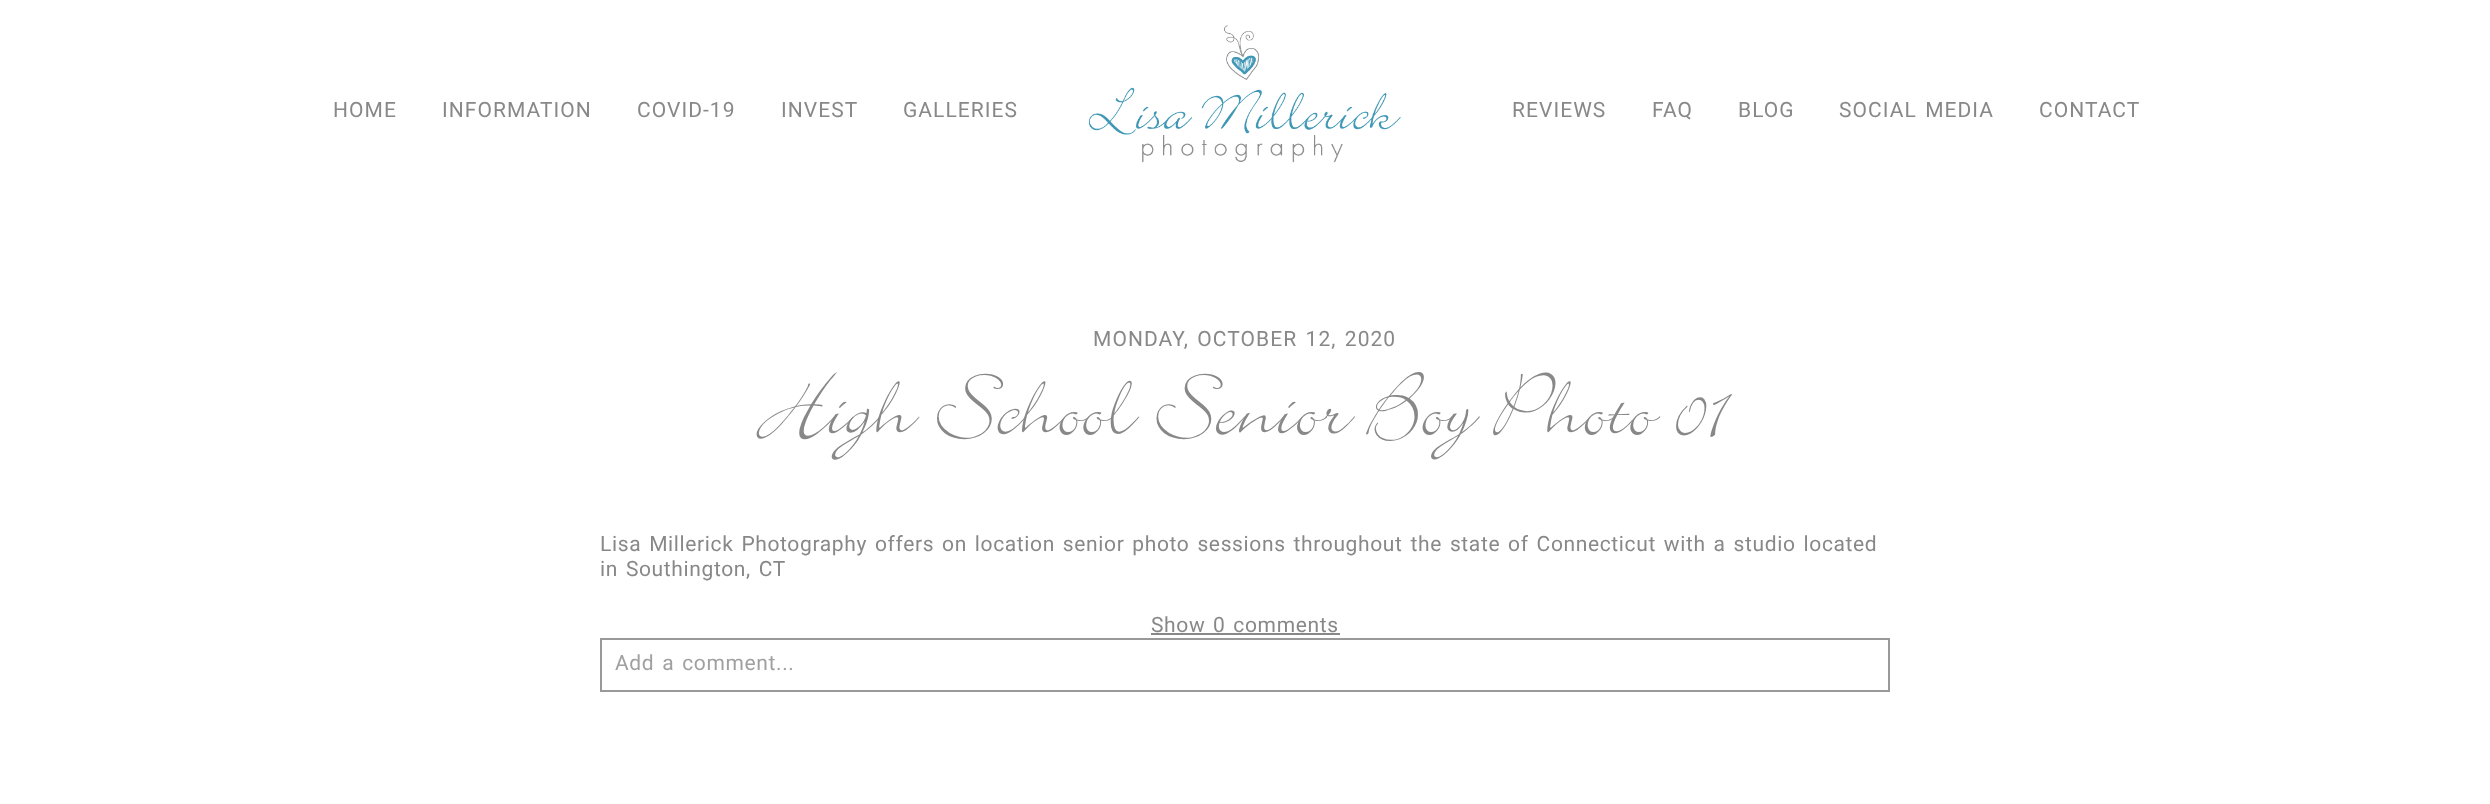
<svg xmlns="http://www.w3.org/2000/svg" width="2490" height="804">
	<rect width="100%" height="100%" fill="#FFFFFF" />
	<g font-family="Roboto" font-size="21" letter-spacing="1.05" fill="#888888">
		<text x="333" y="117">HOME</text>
		<text x="442" y="117">INFORMATION</text>
		<text x="637" y="117">COVID-19</text>
		<text x="781" y="117">INVEST</text>
		<text x="903" y="117">GALLERIES</text>
	</g>
	<image x="1089" y="25" width="312" height="138" href="assets/img1.png" />
	<g font-family="Roboto" font-size="21" letter-spacing="1.05" fill="#888888">
		<text x="1512" y="117">REVIEWS</text>
		<text x="1652" y="117">FAQ</text>
		<text x="1738" y="117">BLOG</text>
		<text x="1839" y="117" word-spacing="2.1">SOCIAL MEDIA</text>
		<text x="2039" y="117">CONTACT</text>
		<text x="1093" y="346" word-spacing="2.1">MONDAY, OCTOBER 12, 2020</text>
	</g>
	<text x="764" y="433" font-family="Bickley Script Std" font-size="97.5" fill="#888888">High School Senior Boy Photo 01</text>
	<g font-family="Roboto" font-size="21" letter-spacing="0.63" fill="#888888">
		<text x="600" y="551" word-spacing="2.1">Lisa Millerick Photography offers on location senior photo sessions throughout the state of Connecticut with a studio located</text>
		<text x="600" y="576" word-spacing="2.1">in Southington, CT</text>
		<text x="1151" y="632">Show</text>
	</g>
	<rect x="1151" y="633" width="189" height="2" fill="#888888" />
	<text x="1213" y="632" word-spacing="2.1" font-family="Roboto" font-size="21" letter-spacing="0.63" fill="#888888">0 comments</text>
	<rect x="601" y="639" width="1288" height="52" fill="none" stroke="#999999" stroke-width="2" />
	<text x="615" y="670" word-spacing="2.1" font-family="Roboto" font-size="21" letter-spacing="0.63" fill="#A0A0A0">Add a comment...</text>
</svg>
